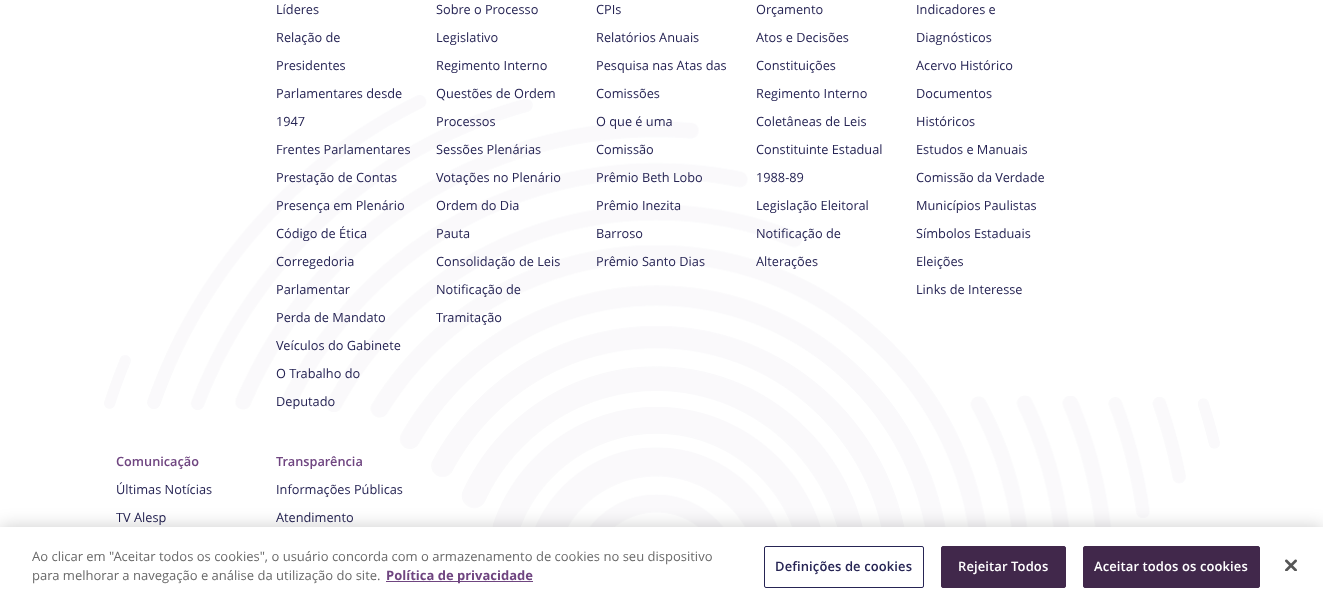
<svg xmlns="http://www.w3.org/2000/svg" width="1323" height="609">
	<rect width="100%" height="100%" fill="#FFFFFF" />
	<image x="104" y="95" width="1116" height="432" href="assets/img1.png" />
	<g font-family="Open Sans" font-size="12.75" fill="#262454">
		<text x="276" y="14">Líderes</text>
		<text x="276" y="42">Relação de</text>
		<text x="276" y="70">Presidentes</text>
		<text x="276" y="98">Parlamentares desde</text>
		<text x="276" y="126">1947</text>
		<text x="276" y="154">Frentes Parlamentares</text>
		<text x="276" y="182">Prestação de Contas</text>
		<text x="276" y="210">Presença em Plenário</text>
		<text x="276" y="238">Código de Ética</text>
		<text x="276" y="266">Corregedoria</text>
		<text x="276" y="294">Parlamentar</text>
		<text x="276" y="322">Perda de Mandato</text>
		<text x="276" y="350">Veículos do Gabinete</text>
		<text x="276" y="378">O Trabalho do</text>
		<text x="276" y="406">Deputado</text>
		<text x="436" y="14">Sobre o Processo</text>
		<text x="436" y="42">Legislativo</text>
		<text x="436" y="70">Regimento Interno</text>
		<text x="436" y="98">Questões de Ordem</text>
		<text x="436" y="126">Processos</text>
		<text x="436" y="154">Sessões Plenárias</text>
		<text x="436" y="182">Votações no Plenário</text>
		<text x="436" y="210">Ordem do Dia</text>
		<text x="436" y="238">Pauta</text>
		<text x="436" y="266">Consolidação de Leis</text>
		<text x="436" y="294">Notificação de</text>
		<text x="436" y="322">Tramitação</text>
		<text x="596" y="14">CPIs</text>
		<text x="596" y="42">Relatórios Anuais</text>
		<text x="596" y="70">Pesquisa nas Atas das</text>
		<text x="596" y="98">Comissões</text>
		<text x="596" y="126">O que é uma</text>
		<text x="596" y="154">Comissão</text>
		<text x="596" y="182">Prêmio Beth Lobo</text>
		<text x="596" y="210">Prêmio Inezita</text>
		<text x="596" y="238">Barroso</text>
		<text x="596" y="266">Prêmio Santo Dias</text>
		<text x="756" y="14">Orçamento</text>
		<text x="756" y="42">Atos e Decisões</text>
		<text x="756" y="70">Constituições</text>
		<text x="756" y="98">Regimento Interno</text>
		<text x="756" y="126">Coletâneas de Leis</text>
		<text x="756" y="154">Constituinte Estadual</text>
		<text x="756" y="182">1988-89</text>
		<text x="756" y="210">Legislação Eleitoral</text>
		<text x="756" y="238">Notificação de</text>
		<text x="756" y="266">Alterações</text>
		<text x="916" y="14">Indicadores e</text>
		<text x="916" y="42">Diagnósticos</text>
		<text x="916" y="70">Acervo Histórico</text>
		<text x="916" y="98">Documentos</text>
		<text x="916" y="126">Históricos</text>
		<text x="916" y="154">Estudos e Manuais</text>
		<text x="916" y="182">Comissão da Verdade</text>
		<text x="916" y="210">Municípios Paulistas</text>
		<text x="916" y="238">Símbolos Estaduais</text>
		<text x="916" y="266">Eleições</text>
		<text x="916" y="294">Links de Interesse</text>
	</g>
	<text x="116" y="466" font-family="Open Sans" font-size="12.75" font-weight="600" fill="#6F4580">Comunicação</text>
	<g font-family="Open Sans" font-size="12.75" fill="#262454">
		<text x="116" y="494">Últimas Notícias</text>
		<text x="116" y="522">TV Alesp</text>
	</g>
	<text x="276" y="466" font-family="Open Sans" font-size="12.75" font-weight="600" fill="#6F4580">Transparência</text>
	<g font-family="Open Sans" font-size="12.75" fill="#262454">
		<text x="276" y="494">Informações Públicas</text>
		<text x="276" y="522">Atendimento</text>
	</g>
	<rect x="0" y="527" width="1323" height="82" fill="#000000" fill-opacity="0.2" filter="blur(9px)" />
	<rect x="0" y="527" width="1323" height="82" fill="#FFFFFF" />
	<g font-family="Open Sans" font-size="13" fill="#696969">
		<text x="32" y="561">Ao clicar em "Aceitar todos os cookies", o usuário concorda com o armazenamento de cookies no seu dispositivo</text>
		<text x="32" y="580">para melhorar a navegação e análise da utilização do site.</text>
	</g>
	<rect x="386" y="581" width="147" height="1" fill="#6F4580" />
	<text x="386" y="580" font-family="Open Sans" font-size="13" font-weight="700" fill="#6F4580">Política de privacidade</text>
	<rect x="764.5" y="546.5" width="159" height="41" rx="1.5" fill="none" stroke="#262454" />
	<text x="775" y="571" font-family="Open Sans" font-size="13" font-weight="600" letter-spacing="0.1" fill="#262454">Definições de cookies</text>
	<rect x="941.5" y="546.5" width="124" height="41" rx="1.5" fill="#41284B" stroke="#41284B" />
	<text x="958" y="571" font-family="Open Sans" font-size="13" font-weight="600" letter-spacing="0.1" fill="#FFFFFF">Rejeitar Todos</text>
	<rect x="1083.5" y="546.5" width="176" height="41" rx="1.5" fill="#41284B" stroke="#41284B" />
	<text x="1094" y="571" font-family="Open Sans" font-size="13" font-weight="600" letter-spacing="0.1" fill="#FFFFFF">Aceitar todos os cookies</text>
	<image x="1285" y="559" width="12" height="12" href="assets/img2.png" />
</svg>
